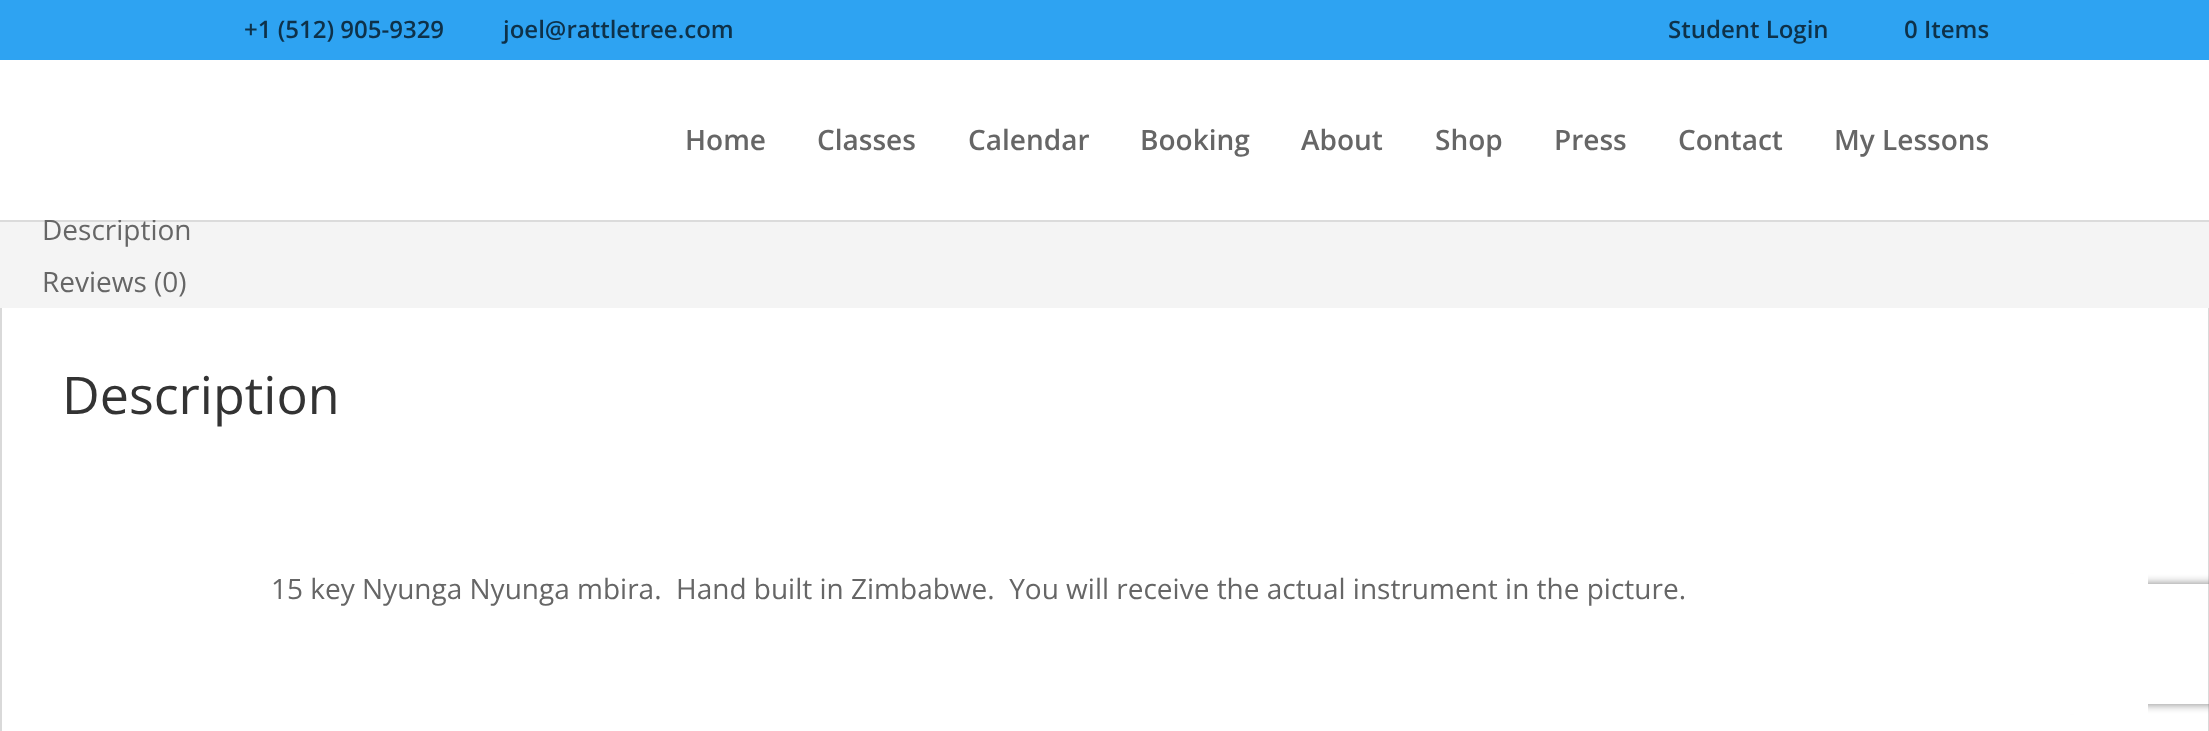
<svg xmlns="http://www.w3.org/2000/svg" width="2209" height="731">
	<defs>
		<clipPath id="clip1"><path d="M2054 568H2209V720H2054ZM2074 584H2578C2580 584 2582 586 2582 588V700C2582 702 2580 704 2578 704H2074C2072 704 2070 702 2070 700V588C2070 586 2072 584 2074 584Z" clip-rule="evenodd" /></clipPath>
	</defs>
	<rect width="100%" height="100%" fill="#FFFFFF" />
	<rect x="0" y="0" width="2209" height="60" fill="#2EA3F2" />
	<g font-family="Open Sans" font-size="24" font-weight="600" fill="#0E3149">
		<text x="244" y="38">+1 (512) 905-9329</text>
		<text x="503" y="38">joel@rattletree.com</text>
		<text x="1668" y="38">Student Login</text>
		<text x="1904" y="38">0 Items</text>
	</g>
	<rect x="1" y="203" width="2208" height="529" fill="none" stroke="#D9D9D9" stroke-width="2" />
	<rect x="0" y="220" width="2209" height="88" fill="#F4F4F4" />
	<rect x="0" y="220" width="2209" height="2" fill="#000000" fill-opacity="0.1" />
	<text x="42" y="240" font-family="Open Sans" font-size="28" fill="#666666">Description</text>
	<rect x="0" y="202" width="2209" height="18" fill="#FFFFFF" />
	<g font-family="Open Sans" font-size="28" font-weight="600" fill="#666666">
		<text x="685" y="150">Home</text>
		<text x="817" y="150">Classes</text>
		<text x="968" y="150">Calendar</text>
		<text x="1140" y="150">Booking</text>
		<text x="1301" y="150">About</text>
		<text x="1435" y="150">Shop</text>
		<text x="1554" y="150">Press</text>
		<text x="1678" y="150">Contact</text>
		<text x="1834" y="150">My Lessons</text>
	</g>
	<text x="42" y="292" font-family="Open Sans" font-size="28" fill="#666666">Reviews (0)</text>
	<text x="62" y="414" font-family="Open Sans" font-size="52" fill="#333333">Description</text>
	<g clip-path="url(#clip1)">
		<rect x="2070" y="584" width="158" height="120" rx="4" fill="#808080" filter="blur(5px)" />
	</g>
	<rect x="2060" y="574" width="88" height="140" fill="#FFFFFF" />
	<text x="271" y="599" font-family="Open Sans" font-size="28" fill="#666666" xml:space="preserve">15 key Nyunga Nyunga mbira.  Hand built in Zimbabwe.  You will receive the actual instrument in the picture.</text>
</svg>
